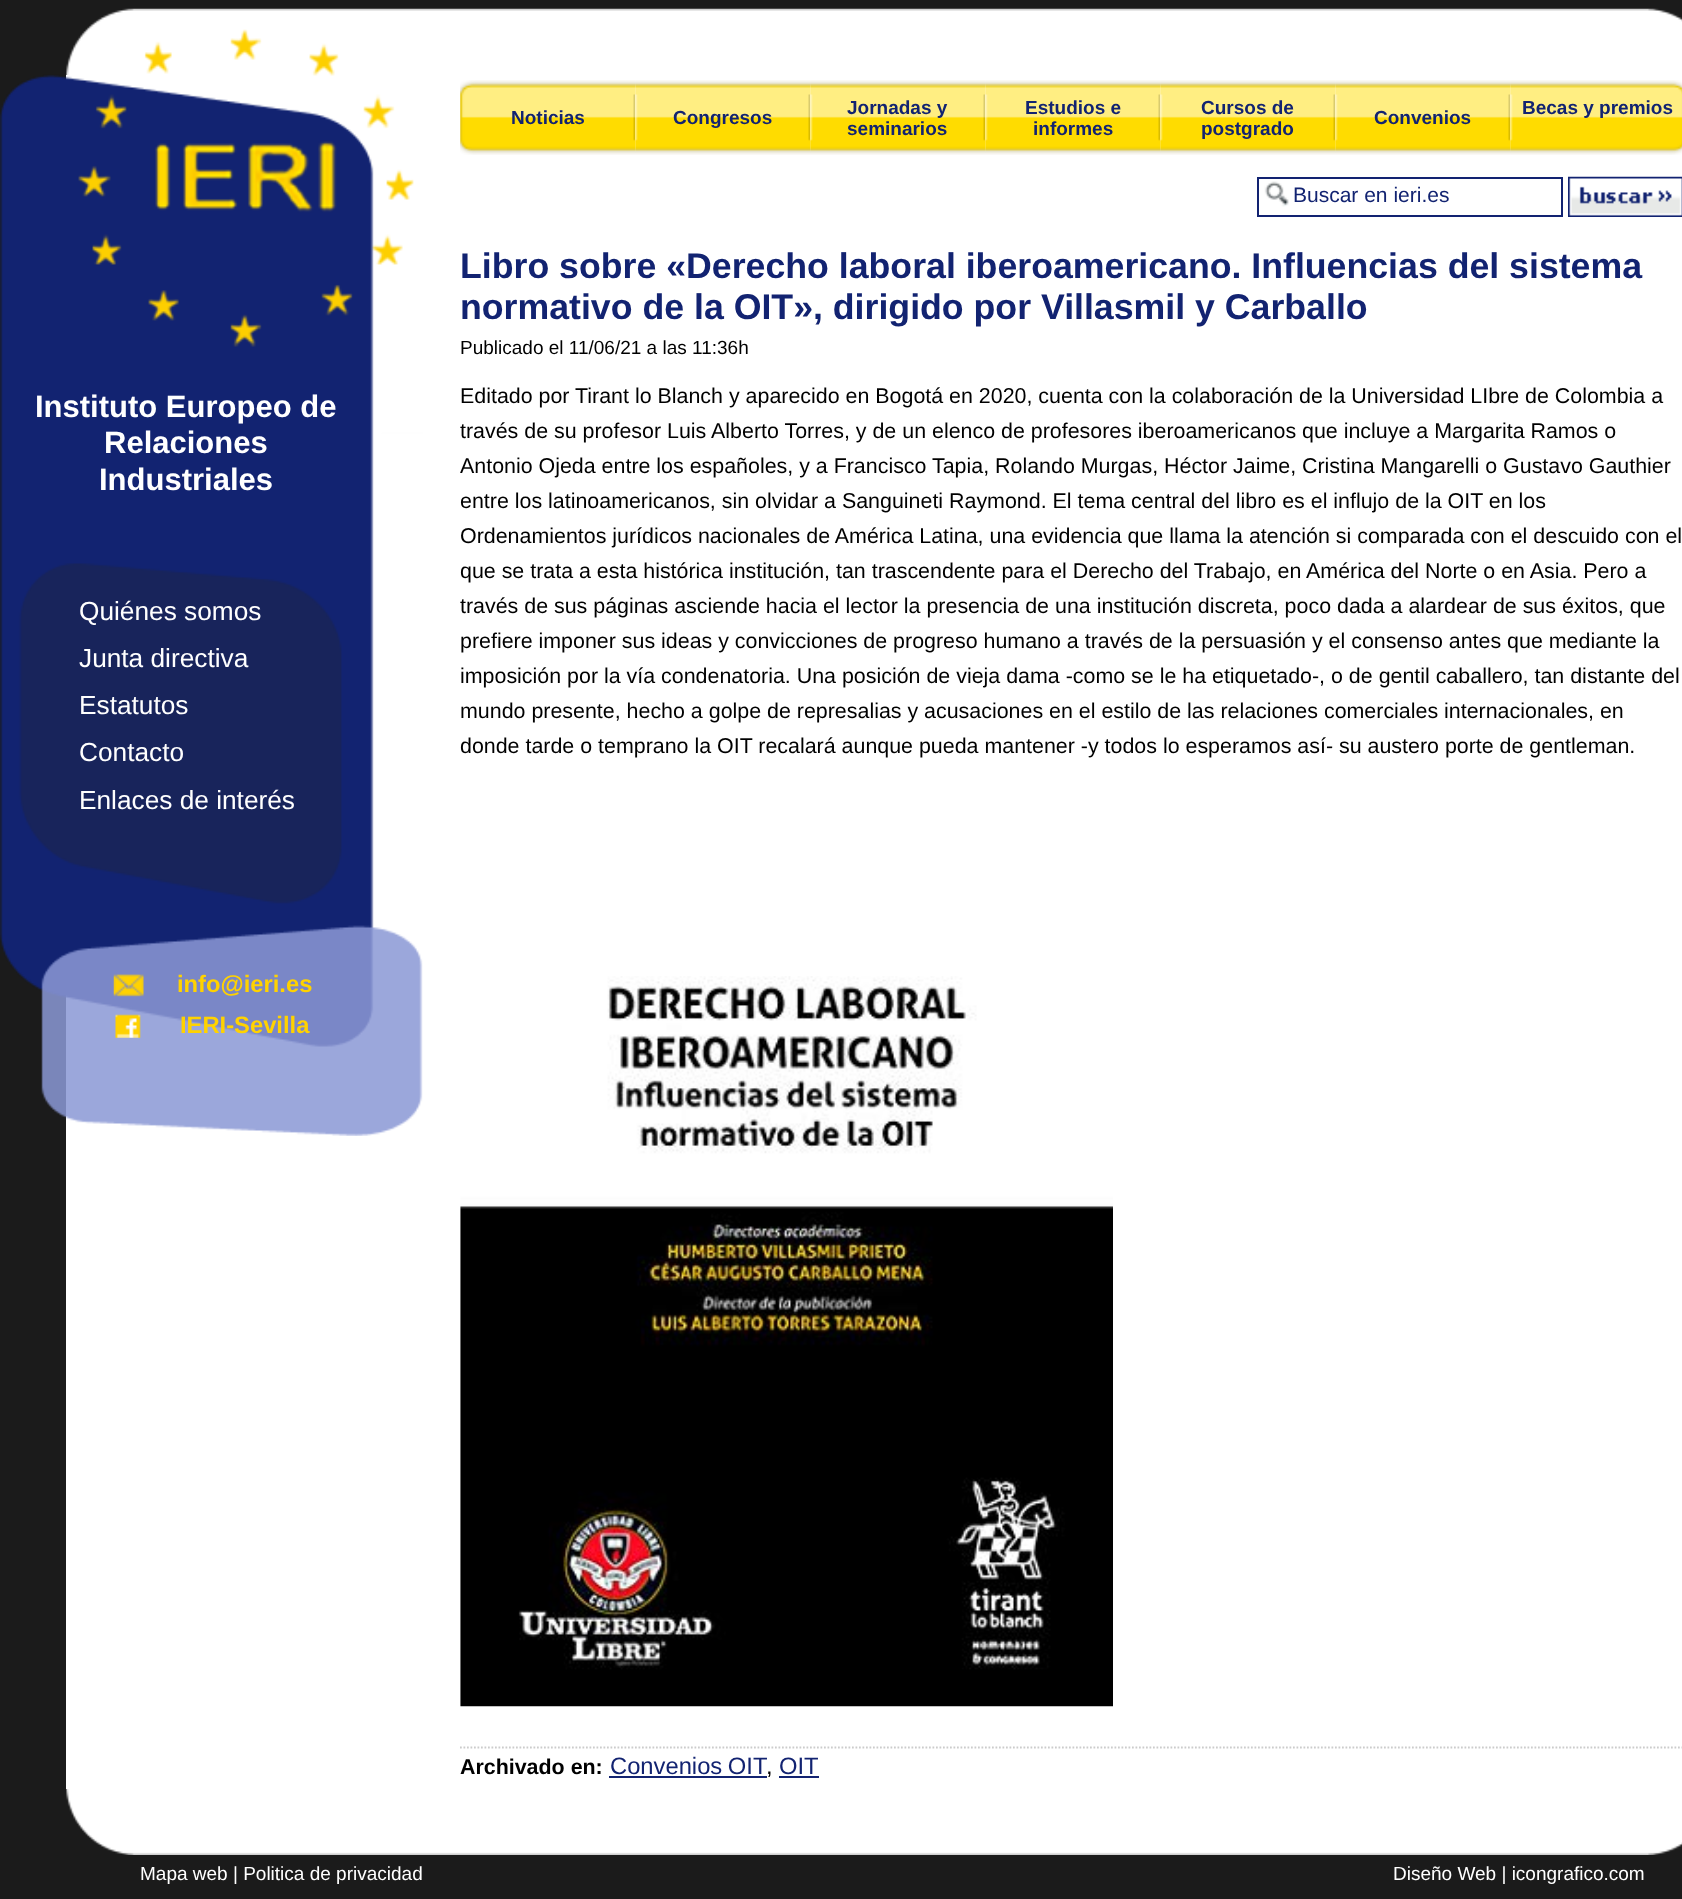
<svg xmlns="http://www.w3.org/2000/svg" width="1682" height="1899">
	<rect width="100%" height="100%" fill="#1B1B1B" />
	<image x="66" y="8" width="1616" height="67" href="assets/img1.png" />
	<rect x="66" y="75" width="1616" height="1714" fill="#FFFFFF" />
	<image x="0" y="29" width="423" height="1107" href="assets/img2.png" />
	<g font-family="Liberation Sans" font-size="31" font-weight="700" fill="#FFFFFF">
		<text x="35" y="417">Instituto Europeo de</text>
		<text x="104" y="453">Relaciones</text>
		<text x="99" y="490">Industriales</text>
	</g>
	<g font-family="Liberation Sans" font-size="26.25" fill="#FFFFFF">
		<text x="79" y="620">Quiénes somos</text>
		<text x="79" y="667">Junta directiva</text>
		<text x="79" y="714">Estatutos</text>
		<text x="79" y="761">Contacto</text>
		<text x="79" y="809">Enlaces de interés</text>
	</g>
	<image x="113" y="974" width="31" height="23" href="assets/img3.png" />
	<text x="177" y="992" font-family="Liberation Sans" font-size="23.75" font-weight="700" fill="#FFD200">info@ieri.es</text>
	<image x="115" y="1014" width="26" height="24" href="assets/img4.png" />
	<text x="180" y="1033" font-family="Liberation Sans" font-size="23.75" font-weight="700" fill="#FFD200">IERI-Sevilla</text>
	<image x="460" y="80" width="176" height="75" href="assets/img5.png" />
	<text x="511" y="124" font-family="Liberation Sans" font-size="19" font-weight="700" fill="#122371">Noticias</text>
	<image x="635" y="80" width="176" height="75" href="assets/img6.png" />
	<text x="673" y="124" font-family="Liberation Sans" font-size="19" font-weight="700" fill="#122371">Congresos</text>
	<image x="810" y="80" width="176" height="75" href="assets/img6.png" />
	<g font-family="Liberation Sans" font-size="19" font-weight="700" fill="#122371">
		<text x="847" y="114">Jornadas y</text>
		<text x="847" y="135">seminarios</text>
	</g>
	<image x="985" y="80" width="176" height="75" href="assets/img6.png" />
	<g font-family="Liberation Sans" font-size="19" font-weight="700" fill="#122371">
		<text x="1025" y="114">Estudios e</text>
		<text x="1033" y="135">informes</text>
	</g>
	<image x="1160" y="80" width="176" height="75" href="assets/img6.png" />
	<g font-family="Liberation Sans" font-size="19" font-weight="700" fill="#122371">
		<text x="1201" y="114">Cursos de</text>
		<text x="1201" y="135">postgrado</text>
	</g>
	<image x="1335" y="80" width="176" height="75" href="assets/img6.png" />
	<text x="1374" y="124" font-family="Liberation Sans" font-size="19" font-weight="700" fill="#122371">Convenios</text>
	<image x="1510" y="80" width="172" height="75" href="assets/img7.png" />
	<text x="1522" y="114" font-family="Liberation Sans" font-size="19" font-weight="700" fill="#122371">Becas y premios</text>
	<image x="1264" y="181" width="25" height="26" href="assets/img8.png" />
	<rect x="1258" y="178" width="304" height="38" fill="none" stroke="#122371" stroke-width="2" />
	<text x="1293" y="202" font-family="Liberation Sans" font-size="21" fill="#122371">Buscar en ieri.es</text>
	<image x="1568" y="176" width="114" height="41" href="assets/img9.png" />
	<g font-family="Liberation Sans" font-size="35.7" font-weight="700" fill="#122371">
		<text x="460" y="278">Libro sobre «Derecho laboral iberoamericano. Influencias del sistema</text>
		<text x="460" y="319">normativo de la OIT», dirigido por Villasmil y Carballo</text>
	</g>
	<text x="460" y="354" font-family="Liberation Sans" font-size="19" fill="#000000">Publicado el 11/06/21 a las 11:36h</text>
	<g font-family="Liberation Sans" font-size="21.42" fill="#000000">
		<text x="460" y="403">Editado por Tirant lo Blanch y aparecido en Bogotá en 2020, cuenta con la colaboración de la Universidad LIbre de Colombia a</text>
		<text x="460" y="438">través de su profesor Luis Alberto Torres, y de un elenco de profesores iberoamericanos que incluye a Margarita Ramos o</text>
		<text x="460" y="473">Antonio Ojeda entre los españoles, y a Francisco Tapia, Rolando Murgas, Héctor Jaime, Cristina Mangarelli o Gustavo Gauthier</text>
		<text x="460" y="508">entre los latinoamericanos, sin olvidar a Sanguineti Raymond. El tema central del libro es el influjo de la OIT en los</text>
		<text x="460" y="543">Ordenamientos jurídicos nacionales de América Latina, una evidencia que llama la atención si comparada con el descuido con el</text>
		<text x="460" y="578">que se trata a esta histórica institución, tan trascendente para el Derecho del Trabajo, en América del Norte o en Asia. Pero a</text>
		<text x="460" y="613">través de sus páginas asciende hacia el lector la presencia de una institución discreta, poco dada a alardear de sus éxitos, que</text>
		<text x="460" y="648">prefiere imponer sus ideas y convicciones de progreso humano a través de la persuasión y el consenso antes que mediante la</text>
		<text x="460" y="683">imposición por la vía condenatoria. Una posición de vieja dama -como se le ha etiquetado-, o de gentil caballero, tan distante del</text>
		<text x="460" y="718">mundo presente, hecho a golpe de represalias y acusaciones en el estilo de las relaciones comerciales internacionales, en</text>
		<text x="460" y="753">donde tarde o temprano la OIT recalará aunque pueda mantener -y todos lo esperamos así- su austero porte de gentleman.</text>
	</g>
	<image x="460" y="976" width="653" height="731" href="assets/img10.png" />
	<path d="M460 1747.5H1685" fill="none" stroke="#CCCCCC" stroke-width="1.8" stroke-dasharray="1.75 1.75" />
	<text x="460" y="1774" font-family="Liberation Sans" font-size="21.42" font-weight="700" fill="#000000">Archivado en:</text>
	<text x="610" y="1774" word-spacing="-1" font-family="Liberation Sans" font-size="23.75" fill="#122371">Convenios OIT</text>
	<rect x="609" y="1776" width="158" height="2" fill="#122371" />
	<text x="766" y="1774" font-family="Liberation Sans" font-size="23.75" fill="#000000">,</text>
	<text x="779" y="1774" font-family="Liberation Sans" font-size="23.75" fill="#122371">OIT</text>
	<rect x="779" y="1776" width="40" height="2" fill="#122371" />
	<image x="66" y="1789" width="1616" height="66" href="assets/img11.png" />
	<g font-family="Liberation Sans" font-size="19" fill="#FFFFFF">
		<text x="140" y="1880">Mapa web | Politica de privacidad</text>
		<text x="1393" y="1880">Diseño Web | icongrafico.com</text>
	</g>
</svg>
